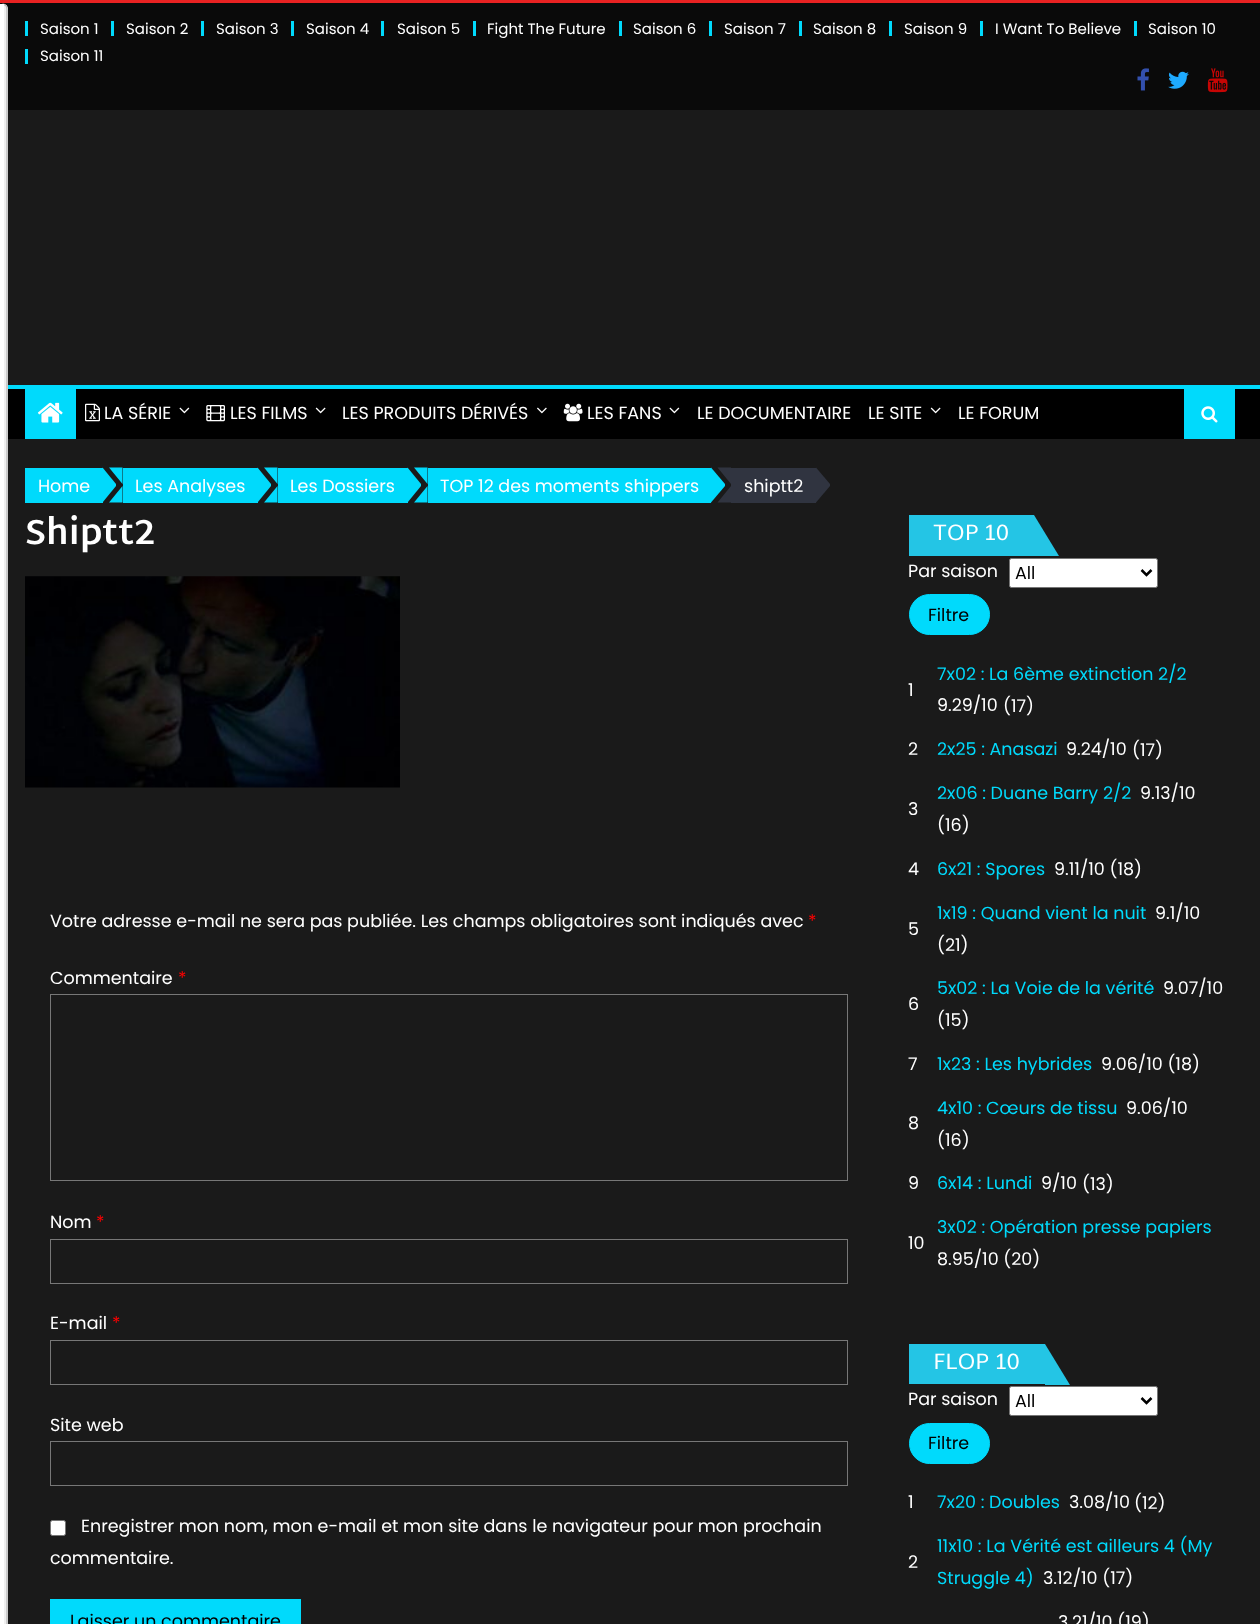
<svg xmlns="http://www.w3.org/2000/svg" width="1260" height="1624">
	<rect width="100%" height="100%" fill="#1A1A1A" />
	<rect x="0" y="3" width="1260" height="107" fill="#0A0A0A" />
	<rect x="0" y="385" width="1260" height="4" fill="#00DAFC" />
	<path d="M8 9V1624C7 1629 1 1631-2 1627V1624V9C-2 2 8 2 8 9Z" fill="#EFEFEF" />
	<path d="M7 9V1624C7 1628 1 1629.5-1 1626L-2 1624V9C-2 3 7 3 7 9Z" fill="none" stroke="#B2B2B2" stroke-width="1.2" />
	<rect x="0" y="4" width="4" height="1620" fill="#FFFFFF" />
	<rect x="0" y="0" width="1260" height="3" fill="#E82222" />
	<rect x="25" y="21" width="3" height="15" fill="#00DAFC" />
	<text x="40" y="34" font-family="Poppins" font-size="15" fill="#FFFFFF">Saison 1</text>
	<rect x="111" y="21" width="3" height="15" fill="#00DAFC" />
	<text x="126" y="34" font-family="Poppins" font-size="15" fill="#FFFFFF">Saison 2</text>
	<rect x="201" y="21" width="3" height="15" fill="#00DAFC" />
	<text x="216" y="34" font-family="Poppins" font-size="15" fill="#FFFFFF">Saison 3</text>
	<rect x="291" y="21" width="3" height="15" fill="#00DAFC" />
	<text x="306" y="34" font-family="Poppins" font-size="15" fill="#FFFFFF">Saison 4</text>
	<rect x="381" y="21" width="3" height="15" fill="#00DAFC" />
	<text x="397" y="34" font-family="Poppins" font-size="15" fill="#FFFFFF">Saison 5</text>
	<rect x="473" y="21" width="3" height="15" fill="#00DAFC" />
	<text x="487" y="34" font-family="Poppins" font-size="15" fill="#FFFFFF">Fight The Future</text>
	<rect x="619" y="21" width="3" height="15" fill="#00DAFC" />
	<text x="633" y="34" font-family="Poppins" font-size="15" fill="#FFFFFF">Saison 6</text>
	<rect x="709" y="21" width="3" height="15" fill="#00DAFC" />
	<text x="724" y="34" font-family="Poppins" font-size="15" fill="#FFFFFF">Saison 7</text>
	<rect x="799" y="21" width="3" height="15" fill="#00DAFC" />
	<text x="813" y="34" font-family="Poppins" font-size="15" fill="#FFFFFF">Saison 8</text>
	<rect x="889" y="21" width="3" height="15" fill="#00DAFC" />
	<text x="904" y="34" font-family="Poppins" font-size="15" fill="#FFFFFF">Saison 9</text>
	<rect x="980" y="21" width="3" height="15" fill="#00DAFC" />
	<text x="995" y="34" font-family="Poppins" font-size="15" fill="#FFFFFF">I Want To Believe</text>
	<rect x="1134" y="21" width="3" height="15" fill="#00DAFC" />
	<text x="1148" y="34" font-family="Poppins" font-size="15" fill="#FFFFFF">Saison 10</text>
	<rect x="25" y="49" width="3" height="15" fill="#00DAFC" />
	<text x="40" y="61" font-family="Poppins" font-size="15" fill="#FFFFFF">Saison 11</text>
	<image x="1137" y="68" width="12" height="23" href="assets/img1.png" />
	<image x="1168" y="71" width="21" height="18" href="assets/img2.png" />
	<image x="1207" y="68" width="21" height="25" href="assets/img3.png" />
	<rect x="8" y="389" width="1252" height="50" fill="#000000" />
	<rect x="25" y="389" width="51" height="50" fill="#00DAFC" />
	<image x="37" y="402" width="26" height="21" href="assets/img4.png" />
	<image x="85" y="403" width="15" height="19" href="assets/img5.png" />
	<text x="104" y="419" font-family="Poppins" font-size="17.5" fill="#FFFFFF">LA SÉRIE</text>
	<image x="179" y="407" width="11" height="7" href="assets/img6.png" />
	<image x="206" y="405" width="19" height="17" href="assets/img7.png" />
	<text x="230" y="419" font-family="Poppins" font-size="17.5" fill="#FFFFFF">LES FILMS</text>
	<image x="315" y="407" width="11" height="7" href="assets/img8.png" />
	<text x="342" y="419" font-family="Poppins" font-size="17.5" fill="#FFFFFF">LES PRODUITS DÉRIVÉS</text>
	<image x="537" y="407" width="10" height="7" href="assets/img9.png" />
	<image x="563" y="403" width="20" height="19" href="assets/img10.png" />
	<text x="587" y="419" font-family="Poppins" font-size="17.5" fill="#FFFFFF">LES FANS</text>
	<image x="669" y="407" width="11" height="7" href="assets/img6.png" />
	<g font-family="Poppins" font-size="17.5" fill="#FFFFFF">
		<text x="697" y="419">LE DOCUMENTAIRE</text>
		<text x="868" y="419">LE SITE</text>
	</g>
	<image x="930" y="407" width="11" height="7" href="assets/img8.png" />
	<text x="958" y="419" font-family="Poppins" font-size="17.5" fill="#FFFFFF">LE FORUM</text>
	<rect x="1184" y="389" width="51" height="50" fill="#00DAFC" />
	<image x="1201" y="406" width="17" height="17" href="assets/img11.png" />
	<rect x="25" y="468" width="78" height="35" fill="#00DAFC" />
	<text x="38" y="492" font-family="Poppins" font-size="17.5" fill="#FFFFFF">Home</text>
	<path d="M102.5 502.5V467.5L116 484V486Z" fill="#00DAFC" />
	<path d="M109 467.5H122.5V484ZM122.5 502.5H109L122.5 486Z" fill="#00DAFC" />
	<rect x="123" y="468" width="135" height="35" fill="#00DAFC" />
	<text x="135" y="492" font-family="Poppins" font-size="17.5" fill="#FFFFFF">Les Analyses</text>
	<path d="M257.5 502.5V467.5L271 484V486Z" fill="#00DAFC" />
	<path d="M264 467.5H277.5V484ZM277.5 502.5H264L277.5 486Z" fill="#00DAFC" />
	<rect x="278" y="468" width="130" height="35" fill="#00DAFC" />
	<text x="290" y="492" font-family="Poppins" font-size="17.5" fill="#FFFFFF">Les Dossiers</text>
	<path d="M407.5 502.5V467.5L421 484V486Z" fill="#00DAFC" />
	<path d="M414 467.5H427.5V484ZM427.5 502.5H414L427.5 486Z" fill="#00DAFC" />
	<rect x="428" y="468" width="283" height="35" fill="#00DAFC" />
	<text x="440" y="492" font-family="Poppins" font-size="17.5" fill="#FFFFFF">TOP 12 des moments shippers</text>
	<path d="M711 502.5V467.5L725 484V486Z" fill="#00DAFC" />
	<path d="M717.5 467.5H731V484ZM731 502.5H717.5L731 486Z" fill="#303440" />
	<rect x="731" y="468" width="85" height="35" fill="#303440" />
	<text x="744" y="492" font-family="Poppins" font-size="17.5" fill="#FFFFFF">shiptt2</text>
	<path d="M816 502.5V467.5L830 484V486Z" fill="#303440" />
	<text x="25" y="544" font-family="Martel Sans" font-size="35" font-weight="700" fill="#FFFFFF">Shiptt2</text>
	<image x="25" y="576" width="375" height="212" href="assets/img12.png" />
	<text x="50" y="927" font-family="Poppins" font-size="17.5" fill="#FFFFFF">Votre adresse e-mail ne sera pas publiée. Les champs obligatoires sont indiqués avec</text>
	<text x="808" y="927" font-family="Poppins" font-size="17.5" fill="#FF0000">*</text>
	<text x="50" y="984" font-family="Poppins" font-size="17.5" fill="#FFFFFF">Commentaire</text>
	<text x="178" y="984" font-family="Poppins" font-size="17.5" fill="#FF0000">*</text>
	<rect x="50.5" y="994.5" width="797" height="186" fill="none" stroke="#777777" />
	<text x="50" y="1228" font-family="Poppins" font-size="17.5" fill="#FFFFFF">Nom</text>
	<text x="96" y="1228" font-family="Poppins" font-size="17.5" fill="#FF0000">*</text>
	<rect x="50.5" y="1239.5" width="797" height="44" fill="none" stroke="#777777" />
	<text x="50" y="1329" font-family="Poppins" font-size="17.5" fill="#FFFFFF">E-mail</text>
	<text x="112" y="1329" font-family="Poppins" font-size="17.5" fill="#FF0000">*</text>
	<rect x="50.5" y="1340.5" width="797" height="44" fill="none" stroke="#777777" />
	<text x="50" y="1431" font-family="Poppins" font-size="17.5" fill="#FFFFFF">Site web</text>
	<rect x="50.5" y="1441.5" width="797" height="44" fill="none" stroke="#777777" />
	<rect x="50.5" y="1520.5" width="15" height="15" rx="2" fill="#FFFFFF" stroke="#767676" />
	<g font-family="Poppins" font-size="17.5" fill="#FFFFFF">
		<text x="81" y="1532">Enregistrer mon nom, mon e-mail et mon site dans le navigateur pour mon prochain</text>
		<text x="50" y="1564">commentaire.</text>
	</g>
	<rect x="50" y="1599" width="251" height="25" fill="#00DAFC" />
	<text x="70" y="1627" font-family="Poppins" font-size="17.5" fill="#000000">Laisser un commentaire</text>
	<rect x="909" y="515" width="125" height="41" fill="#24C5E5" />
	<text x="933" y="540" font-family="Martel Sans" font-size="22.5" fill="#FFFFFF">TOP 10</text>
	<path d="M1059 556H1034V515Z" fill="#24C5E5" />
	<text x="908" y="577" font-family="Poppins" font-size="17.5" fill="#FFFFFF">Par saison</text>
	<rect x="1009.5" y="558.5" width="148" height="29" rx="2" fill="#FFFFFF" stroke="#767676" />
	<path d="M1141.5 570L1146.5 575L1151.5 570" fill="none" stroke="#000000" stroke-width="2.5" />
	<text x="1015" y="579" font-family="Poppins" font-size="17.5" fill="#000000">All</text>
	<rect x="909.5" y="594.5" width="80" height="40" rx="20" fill="#00DAFC" stroke="#00DAFC" />
	<text x="928" y="621" font-family="Poppins" font-size="17.5" fill="#000000">Filtre</text>
	<text x="908" y="696" font-family="Poppins" font-size="17.5" fill="#FFFFFF">1</text>
	<text x="937" y="680" font-family="Poppins" font-size="17.5" fill="#00DAFC">7x02 : La 6ème extinction 2/2</text>
	<g font-family="Poppins" font-size="17.5" fill="#FFFFFF">
		<text x="937" y="711">9.29/10</text>
		<text x="1003" y="712">(17)</text>
		<text x="908" y="755">2</text>
	</g>
	<text x="937" y="755" font-family="Poppins" font-size="17.5" fill="#00DAFC">2x25 : Anasazi</text>
	<g font-family="Poppins" font-size="17.5" fill="#FFFFFF">
		<text x="1066" y="755">9.24/10</text>
		<text x="1132" y="756">(17)</text>
		<text x="908" y="815">3</text>
	</g>
	<text x="937" y="799" font-family="Poppins" font-size="17.5" fill="#00DAFC">2x06 : Duane Barry 2/2</text>
	<g font-family="Poppins" font-size="17.5" fill="#FFFFFF">
		<text x="1140" y="799">9.13/10</text>
		<text x="937" y="831">(16)</text>
		<text x="908" y="875">4</text>
	</g>
	<text x="937" y="875" font-family="Poppins" font-size="17.5" fill="#00DAFC">6x21 : Spores</text>
	<g font-family="Poppins" font-size="17.5" fill="#FFFFFF">
		<text x="1054" y="875">9.11/10 (18)</text>
		<text x="908" y="935">5</text>
	</g>
	<text x="937" y="919" font-family="Poppins" font-size="17.5" fill="#00DAFC">1x19 : Quand vient la nuit</text>
	<g font-family="Poppins" font-size="17.5" fill="#FFFFFF">
		<text x="1155" y="919">9.1/10</text>
		<text x="937" y="951">(21)</text>
		<text x="908" y="1010">6</text>
	</g>
	<text x="937" y="994" font-family="Poppins" font-size="17.5" fill="#00DAFC">5x02 : La Voie de la vérité</text>
	<g font-family="Poppins" font-size="17.5" fill="#FFFFFF">
		<text x="1163" y="994">9.07/10</text>
		<text x="937" y="1026">(15)</text>
		<text x="908" y="1070">7</text>
	</g>
	<text x="937" y="1070" font-family="Poppins" font-size="17.5" fill="#00DAFC">1x23 : Les hybrides</text>
	<g font-family="Poppins" font-size="17.5" fill="#FFFFFF">
		<text x="1101" y="1070">9.06/10 (18)</text>
		<text x="908" y="1129">8</text>
	</g>
	<text x="937" y="1114" font-family="Poppins" font-size="17.5" fill="#00DAFC">4x10 : Cœurs de tissu</text>
	<g font-family="Poppins" font-size="17.5" fill="#FFFFFF">
		<text x="1126" y="1114">9.06/10</text>
		<text x="937" y="1146">(16)</text>
		<text x="908" y="1189">9</text>
	</g>
	<text x="937" y="1189" font-family="Poppins" font-size="17.5" fill="#00DAFC">6x14 : Lundi</text>
	<g font-family="Poppins" font-size="17.5" fill="#FFFFFF">
		<text x="1041" y="1189">9/10</text>
		<text x="1082" y="1190">(13)</text>
		<text x="908" y="1249">10</text>
	</g>
	<text x="937" y="1233" font-family="Poppins" font-size="17.5" fill="#00DAFC">3x02 : Opération presse papiers</text>
	<text x="937" y="1265" font-family="Poppins" font-size="17.5" fill="#FFFFFF">8.95/10 (20)</text>
	<rect x="909" y="1344" width="136" height="40" fill="#24C5E5" />
	<text x="933" y="1369" font-family="Martel Sans" font-size="22.5" fill="#FFFFFF">FLOP 10</text>
	<path d="M1070 1385H1045V1344Z" fill="#24C5E5" />
	<text x="908" y="1405" font-family="Poppins" font-size="17.5" fill="#FFFFFF">Par saison</text>
	<rect x="1009.5" y="1386.5" width="148" height="29" rx="2" fill="#FFFFFF" stroke="#767676" />
	<path d="M1141.5 1398L1146.5 1403L1151.5 1398" fill="none" stroke="#000000" stroke-width="2.5" />
	<text x="1015" y="1407" font-family="Poppins" font-size="17.5" fill="#000000">All</text>
	<rect x="909.5" y="1423.5" width="80" height="40" rx="20" fill="#00DAFC" stroke="#00DAFC" />
	<text x="928" y="1449" font-family="Poppins" font-size="17.5" fill="#000000">Filtre</text>
	<text x="908" y="1508" font-family="Poppins" font-size="17.5" fill="#FFFFFF">1</text>
	<text x="937" y="1508" font-family="Poppins" font-size="17.5" fill="#00DAFC">7x20 : Doubles</text>
	<g font-family="Poppins" font-size="17.5" fill="#FFFFFF">
		<text x="1069" y="1508">3.08/10</text>
		<text x="1134" y="1509">(12)</text>
		<text x="908" y="1568">2</text>
	</g>
	<g font-family="Poppins" font-size="17.5" fill="#00DAFC">
		<text x="937" y="1552">11x10 : La Vérité est ailleurs 4 (My</text>
		<text x="937" y="1584">Struggle 4)</text>
	</g>
	<g font-family="Poppins" font-size="17.5" fill="#FFFFFF">
		<text x="1043" y="1584">3.12/10 (17)</text>
		<text x="1058" y="1628">3.21/10 (19)</text>
	</g>
</svg>
